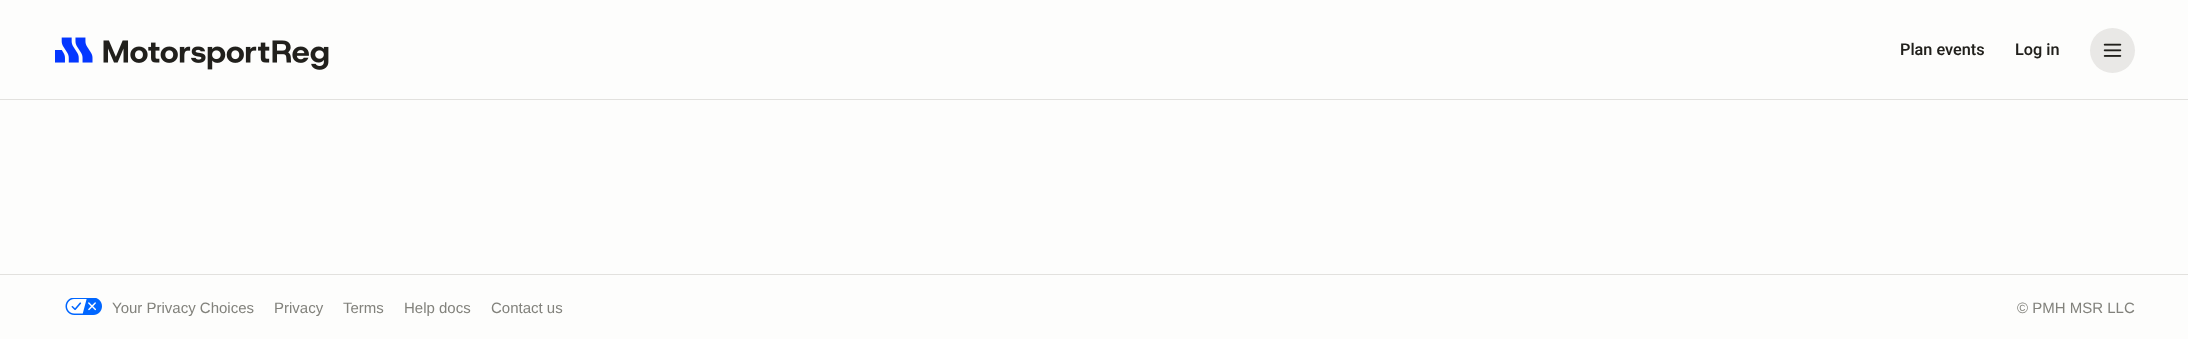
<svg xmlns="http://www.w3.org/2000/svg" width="2188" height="339">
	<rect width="100%" height="100%" fill="#FDFDFC" />
	<rect x="0" y="99" width="2188" height="1" fill="#E2E1DE" />
	<image x="55" y="37" width="274" height="33" href="assets/img1.png" />
	<g font-family="Roboto" font-size="16.25" font-weight="500" fill="#21201C">
		<text x="1900" y="55">Plan events</text>
		<text x="2015" y="55">Log in</text>
	</g>
	<circle cx="2112.5" cy="50.5" r="22.5" fill="#E9E8E6" />
	<image x="2103" y="43" width="19" height="14" href="assets/img2.png" />
	<rect x="0" y="274" width="2188" height="1" fill="#E2E1DE" />
	<image x="65" y="298" width="37" height="17" href="assets/img3.png" />
	<g font-family="Liberation Sans" font-size="15" fill="#82827C">
		<text x="112" y="313">Your Privacy Choices</text>
		<text x="274" y="313">Privacy</text>
		<text x="343" y="313">Terms</text>
		<text x="404" y="313">Help docs</text>
		<text x="491" y="313">Contact us</text>
		<text x="2017" y="313">© PMH MSR LLC</text>
	</g>
</svg>
